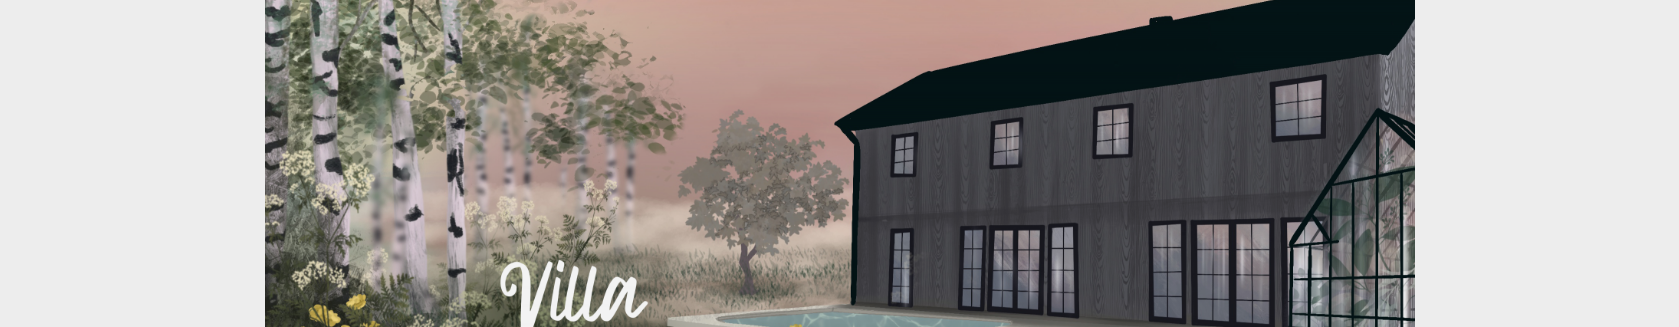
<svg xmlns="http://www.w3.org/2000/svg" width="1679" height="327">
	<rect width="100%" height="100%" fill="#EDEDED" />
	<image x="265" y="0" width="1150" height="327" href="assets/img1.png" />
</svg>
